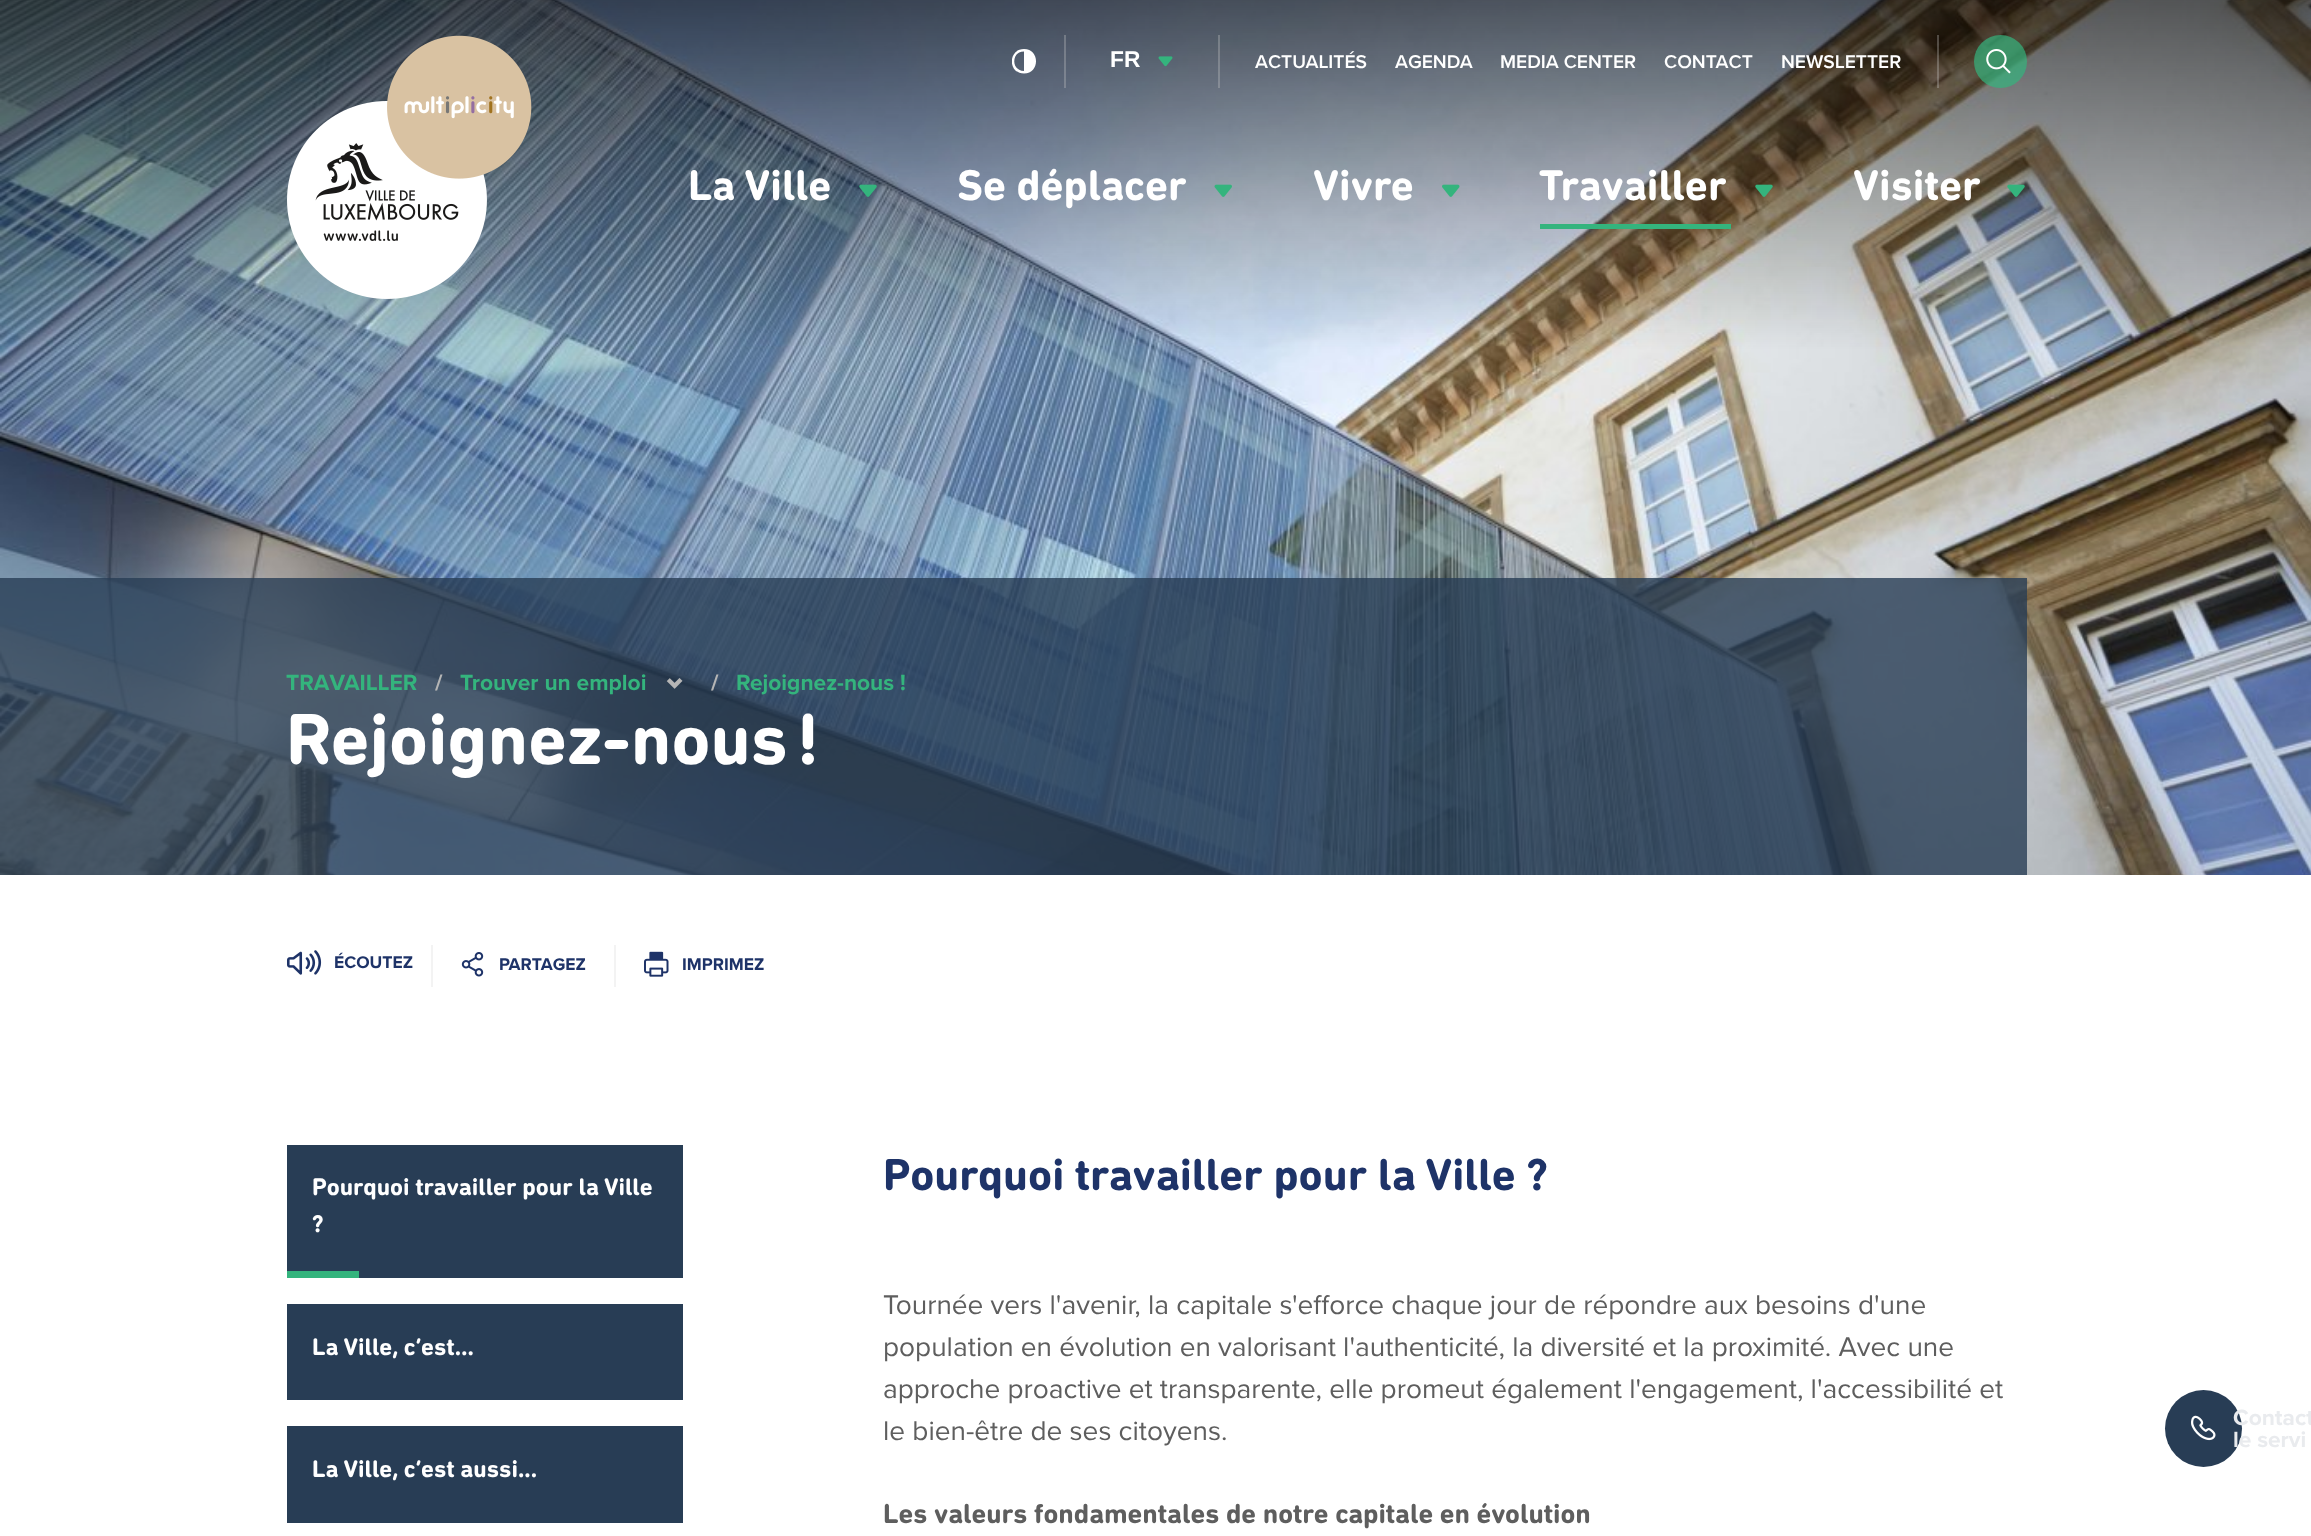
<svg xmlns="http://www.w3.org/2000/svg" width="2311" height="1536">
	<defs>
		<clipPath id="clip1"><rect x="1012" y="49" width="26" height="25" /></clipPath>
	</defs>
	<rect width="100%" height="100%" fill="#FFFFFF" />
	<image x="0" y="0" width="2311" height="875" href="assets/img1.png" />
	<image x="287" y="35" width="245" height="264" href="assets/img2.png" />
	<rect x="1064" y="35" width="2" height="53" fill="#CECECE" fill-opacity="0.3" />
	<g clip-path="url(#clip1)">
		<path d="M1024 49C1040 49 1040 73.5 1024 73.5C1007.5 73.5 1008 49 1024 49ZM1024 71V51.5C1011 51.5 1011 71 1024 71Z" fill="#FFFFFF" />
	</g>
	<rect x="1218" y="35" width="2" height="53" fill="#CECECE" fill-opacity="0.3" />
	<text x="1110" y="67" font-family="Liberation Sans" font-size="22.75" font-weight="700" fill="#FFFFFF">FR</text>
	<image x="1158" y="56" width="15" height="11" href="assets/img3.png" />
	<g font-family="Proxima Nova" font-size="19.25" font-weight="600" fill="#FFFFFF">
		<text x="1255" y="68">ACTUALITÉS</text>
		<text x="1395" y="68">AGENDA</text>
		<text x="1500" y="68">MEDIA CENTER</text>
		<text x="1664" y="68">CONTACT</text>
		<text x="1781" y="68">NEWSLETTER</text>
	</g>
	<rect x="1937" y="35" width="2" height="53" fill="#CECECE" fill-opacity="0.3" />
	<circle cx="2000.5" cy="61.5" r="26.5" fill="#34B47D" fill-opacity="0.7" />
	<image x="1986" y="49" width="25" height="25" href="assets/img4.png" />
	<text x="688" y="200" font-family="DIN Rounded" font-size="43.75" fill="#FFFFFF">La Ville</text>
	<image x="859" y="184" width="18" height="13" href="assets/img5.png" />
	<text x="957" y="200" font-family="DIN Rounded" font-size="43.75" fill="#FFFFFF">Se déplacer</text>
	<image x="1214" y="184" width="18" height="13" href="assets/img6.png" />
	<text x="1313" y="200" font-family="DIN Rounded" font-size="43.75" fill="#FFFFFF">Vivre</text>
	<image x="1442" y="184" width="18" height="13" href="assets/img7.png" />
	<text x="1539" y="200" font-family="DIN Rounded" font-size="43.75" fill="#FFFFFF">Travailler</text>
	<image x="1755" y="184" width="18" height="13" href="assets/img8.png" />
	<rect x="1540" y="224" width="191" height="5" fill="#34B47D" />
	<text x="1853" y="200" font-family="DIN Rounded" font-size="43.75" fill="#FFFFFF">Visiter</text>
	<image x="2007" y="184" width="18" height="13" href="assets/img9.png" />
	<rect x="0" y="578" width="2027" height="297" fill="#283D55" fill-opacity="0.8" />
	<text x="286" y="690" font-family="Proxima Nova" font-size="22.75" font-weight="700" fill="#34B47D">TRAVAILLER</text>
	<text x="435" y="690" font-family="Proxima Nova" font-size="22.75" font-weight="700" fill="#B6B6B6">/</text>
	<text x="460" y="690" font-family="Proxima Nova" font-size="22.75" font-weight="700" fill="#34B47D">Trouver un emploi</text>
	<image x="666" y="678" width="17" height="11" href="assets/img10.png" />
	<text x="711" y="690" font-family="Proxima Nova" font-size="22.75" font-weight="700" fill="#B6B6B6">/</text>
	<text x="736" y="690" font-family="Proxima Nova" font-size="22.75" font-weight="700" fill="#34B47D">Rejoignez-nous !</text>
	<text x="286" y="764" font-family="DIN Rounded" font-size="73.5" fill="#FFFFFF">Rejoignez-nous !</text>
	<image x="287" y="950" width="35" height="25" href="assets/img11.png" />
	<text x="334" y="968" font-family="Proxima Nova" font-size="17.5" font-weight="700" fill="#1E3368">ÉCOUTEZ</text>
	<rect x="431" y="945" width="2" height="42" fill="#F3F3F3" />
	<image x="461" y="952" width="23" height="25" href="assets/img12.png" />
	<text x="499" y="970" font-family="Proxima Nova" font-size="17.5" font-weight="700" fill="#1E3368">PARTAGEZ</text>
	<rect x="614" y="945" width="2" height="42" fill="#F3F3F3" />
	<image x="644" y="951" width="25" height="26" href="assets/img13.png" />
	<text x="682" y="970" font-family="Proxima Nova" font-size="17.5" font-weight="700" fill="#1E3368">IMPRIMEZ</text>
	<rect x="287" y="1145" width="396" height="133" fill="#283D55" />
	<g font-family="DIN Rounded" font-size="24.5" fill="#FFFFFF">
		<text x="312" y="1195">Pourquoi travailler pour la Ville</text>
		<text x="312" y="1232">?</text>
	</g>
	<rect x="287" y="1271" width="72" height="7" fill="#34B47D" />
	<rect x="287" y="1304" width="396" height="96" fill="#283D55" />
	<text x="312" y="1355" font-family="DIN Rounded" font-size="24.5" fill="#FFFFFF">La Ville, c’est…</text>
	<rect x="287" y="1426" width="396" height="97" fill="#283D55" />
	<text x="312" y="1477" font-family="DIN Rounded" font-size="24.5" fill="#FFFFFF">La Ville, c’est aussi...</text>
	<text x="883" y="1190" font-family="DIN Rounded" font-size="45.5" fill="#1E3368">Pourquoi travailler pour la Ville ?</text>
	<g font-family="Proxima Nova" font-size="28" fill="#5E5E5E">
		<text x="883" y="1314">Tournée vers l'avenir, la capitale s'efforce chaque jour de répondre aux besoins d'une</text>
		<text x="883" y="1356">population en évolution en valorisant l'authenticité, la diversité et la proximité. Avec une</text>
		<text x="883" y="1398">approche proactive et transparente, elle promeut également l'engagement, l'accessibilité et</text>
		<text x="883" y="1440">le bien-être de ses citoyens.</text>
	</g>
	<text x="883" y="1523" font-family="DIN Rounded" font-size="28" fill="#5E5E5E">Les valeurs fondamentales de notre capitale en évolution</text>
	<circle cx="2203.5" cy="1428.5" r="38.5" fill="#283D55" />
	<image x="2191" y="1415" width="25" height="26" href="assets/img14.png" />
	<g font-family="Proxima Nova" font-size="22.75" font-weight="700" fill="#E9EBEE">
		<text x="2233" y="1425">Contact</text>
		<text x="2233" y="1447">le servi</text>
	</g>
</svg>
